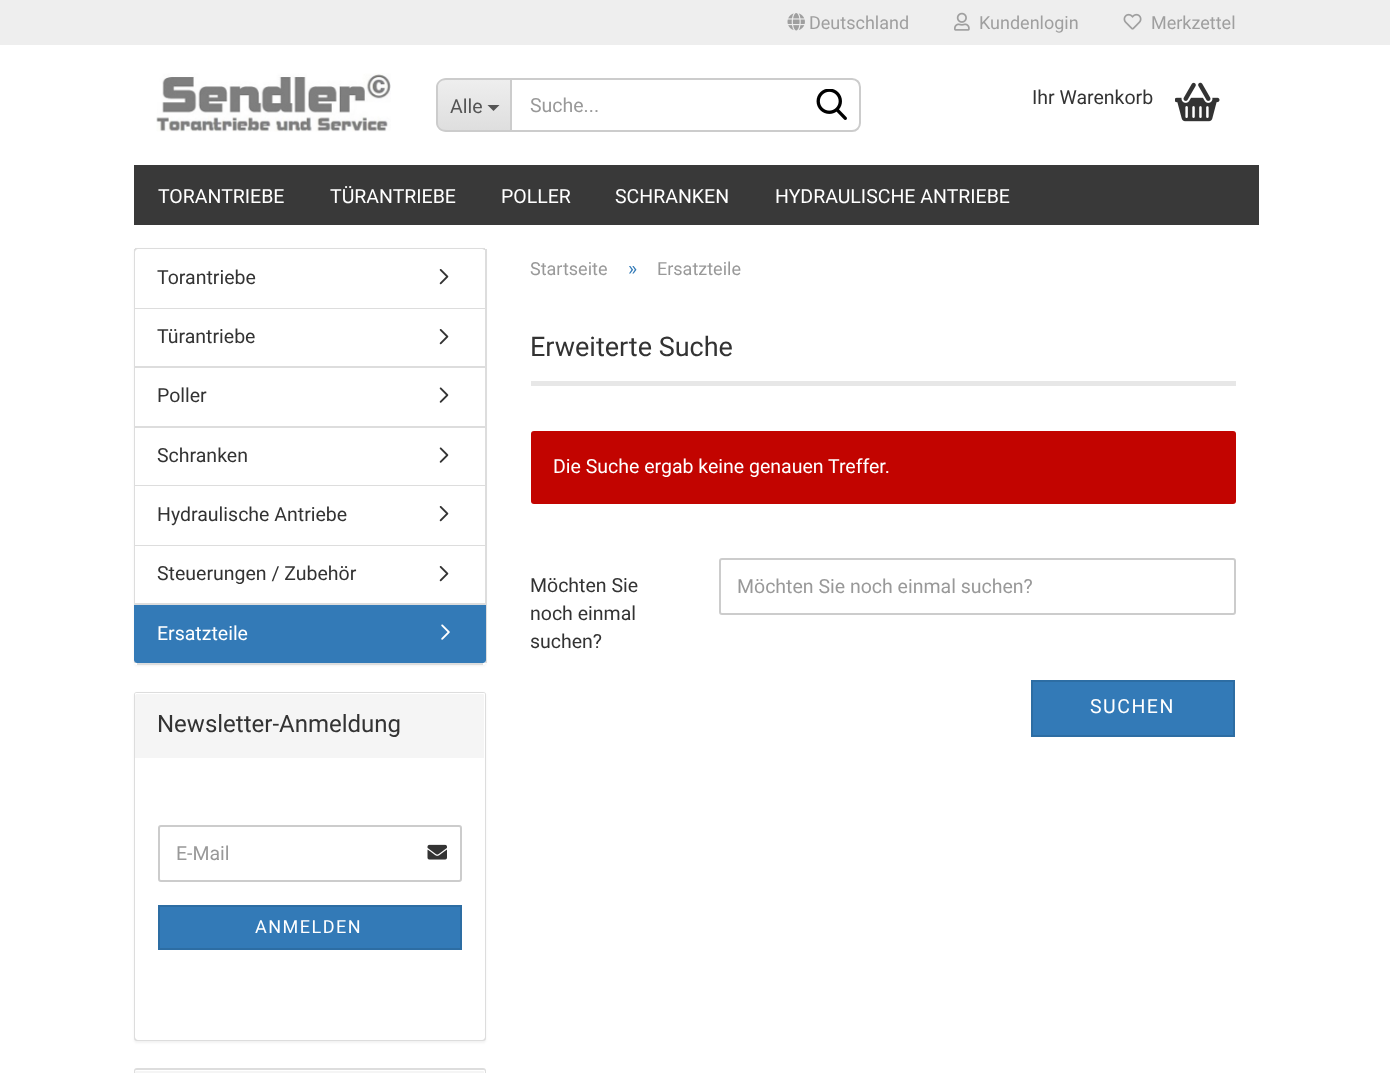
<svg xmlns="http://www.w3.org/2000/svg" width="1390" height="1073">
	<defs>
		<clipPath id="clip1"><path d="M446 78H510V132H446C441 132 437 128 437 123V87C437 82 441 78 446 78Z" /></clipPath>
		<linearGradient id="g1" gradientUnits="userSpaceOnUse" x1="474" y1="80" x2="474" y2="131"><stop offset="0" stop-color="#EEEEEE" /><stop offset="1" stop-color="#DEDEDE" /></linearGradient>
	</defs>
	<rect width="100%" height="100%" fill="#FFFFFF" />
	<rect x="0" y="0" width="1390" height="45" fill="#EEEEEE" />
	<image x="787" y="13" width="18" height="18" href="assets/img1.png" />
	<text x="809" y="29" font-family="Roboto" font-size="18" fill="#9F9F9F">Deutschland</text>
	<image x="954" y="12" width="16" height="19" href="assets/img2.png" />
	<text x="979" y="29" font-family="Roboto" font-size="18" fill="#9F9F9F">Kundenlogin</text>
	<image x="1123" y="13" width="19" height="17" href="assets/img3.png" />
	<text x="1151" y="29" font-family="Roboto" font-size="18" fill="#9F9F9F">Merkzettel</text>
	<image x="156" y="73" width="235" height="59" href="assets/img4.png" />
	<g clip-path="url(#clip1)">
		<rect x="437" y="80" width="73" height="51" fill="url(#g1)" />
	</g>
	<path d="M446 78H510V132H446C441 132 436 128 436 123V87C436 82 441 78 446 78ZM446 80H510V130H446C441 130 438 127 438 123V87C438 83 441 80 446 80Z" fill="#CCCCCC" fill-rule="evenodd" />
	<text x="450" y="113" font-family="Roboto" font-size="19.5" fill="#555555">Alle</text>
	<path d="M487.5 105H499.5L493.5 111Z" fill="#555555" />
	<path d="M511 79H852C856.5 79 860 82.5 860 87V123C860 127.5 856.5 131 852 131H511Z" fill="none" stroke="#CCCCCC" stroke-width="2" />
	<text x="530" y="112" font-family="Roboto" font-size="19.5" fill="#999999">Suche...</text>
	<image x="816" y="89" width="31" height="31" href="assets/img5.png" />
	<text x="1032" y="104" font-family="Roboto" font-size="19.5" fill="#333333">Ihr Warenkorb</text>
	<image x="1175" y="82" width="45" height="40" href="assets/img6.png" />
	<rect x="134" y="165" width="1125" height="60" fill="#393939" />
	<g font-family="Roboto" font-size="19.5" fill="#FFFFFF">
		<text x="158" y="203">TORANTRIEBE</text>
		<text x="330" y="203">TÜRANTRIEBE</text>
		<text x="501" y="203">POLLER</text>
		<text x="615" y="203">SCHRANKEN</text>
		<text x="775" y="203">HYDRAULISCHE ANTRIEBE</text>
	</g>
	<rect x="134" y="249" width="352" height="417" rx="3" fill="#000000" fill-opacity="0.05" filter="blur(1px)" />
	<rect x="134" y="248" width="352" height="417" rx="3" fill="#FFFFFF" />
	<rect x="135" y="248" width="350" height="2" fill="#DDDDDD" />
	<rect x="485" y="249" width="2" height="414" fill="#DDDDDD" />
	<rect x="134" y="249" width="2" height="414" fill="#DDDDDD" />
	<rect x="135" y="308" width="350" height="1" fill="#DDDDDD" />
	<path d="M138 249H482C483.5 249 485 250.5 485 252V308H135V252C135 250.5 136.5 249 138 249Z" fill="#FFFFFF" />
	<text x="157" y="284" font-family="Roboto" font-size="19.5" fill="#333333">Torantriebe</text>
	<image x="439" y="269" width="10" height="16" href="assets/img7.png" />
	<rect x="135" y="366" width="350" height="2" fill="#DDDDDD" />
	<rect x="135" y="309" width="1" height="57" fill="#FFFFFF" />
	<text x="157" y="343" font-family="Roboto" font-size="19.5" fill="#333333">Türantriebe</text>
	<image x="439" y="329" width="10" height="16" href="assets/img7.png" />
	<rect x="135" y="426" width="350" height="2" fill="#DDDDDD" />
	<rect x="135" y="368" width="1" height="58" fill="#FFFFFF" />
	<text x="157" y="402" font-family="Roboto" font-size="19.5" fill="#333333">Poller</text>
	<image x="439" y="387" width="10" height="16" href="assets/img8.png" />
	<rect x="135" y="485" width="350" height="1" fill="#DDDDDD" />
	<rect x="135" y="428" width="1" height="57" fill="#FFFFFF" />
	<text x="157" y="462" font-family="Roboto" font-size="19.5" fill="#333333">Schranken</text>
	<image x="439" y="447" width="10" height="16" href="assets/img8.png" />
	<rect x="135" y="545" width="350" height="1" fill="#DDDDDD" />
	<rect x="135" y="486" width="1" height="59" fill="#FFFFFF" />
	<text x="157" y="521" font-family="Roboto" font-size="19.5" fill="#333333">Hydraulische Antriebe</text>
	<image x="439" y="506" width="10" height="16" href="assets/img7.png" />
	<rect x="135" y="603" width="350" height="2" fill="#DDDDDD" />
	<rect x="135" y="546" width="1" height="57" fill="#FFFFFF" />
	<text x="157" y="580" font-family="Roboto" font-size="19.5" fill="#333333">Steuerungen / Zubehör</text>
	<image x="439" y="566" width="10" height="16" href="assets/img7.png" />
	<rect x="137" y="663" width="346" height="2" fill="#DDDDDD" />
	<path d="M134 605H486V660C486 661.5 484.5 663 483 663H137C135.5 663 134 661.5 134 660Z" fill="#337AB7" />
	<text x="157" y="640" font-family="Roboto" font-size="19.5" fill="#FFFFFF">Ersatzteile</text>
	<image x="441" y="624" width="9" height="16" href="assets/img9.png" />
	<rect x="134" y="693" width="352" height="350" rx="3" fill="#000000" fill-opacity="0.05" filter="blur(1px)" />
	<rect x="135" y="693" width="350" height="347" rx="2" fill="none" stroke="#DDDDDD" stroke-width="2" />
	<path d="M136.5 693H483.5C484.5 693 485 693.5 485 694.5V758H135V694.5C135 693.5 135.5 693 136.5 693Z" fill="#F5F5F5" />
	<path d="M136 694H483C484 694 484 695 484 696V758H485V694C485 694 484 693 484 693H136C136 693 135 694 135 694V696Z" fill="#FFFFFF" />
	<text x="157" y="732" font-family="Roboto" font-size="24" fill="#333333">Newsletter-Anmeldung</text>
	<path d="M135 758H485V1037C485 1038.5 483.5 1040 482 1040H138C136.5 1040 135 1038.5 135 1037Z" fill="#FFFFFF" />
	<rect x="159" y="826" width="302" height="55" rx="2" fill="none" stroke="#CCCCCC" stroke-width="2" />
	<text x="176" y="860" font-family="Roboto" font-size="19.5" fill="#999999">E-Mail</text>
	<image x="427" y="844" width="20" height="16" href="assets/img10.png" />
	<rect x="159" y="906" width="302" height="43" fill="#337AB7" stroke="#2D6DA3" stroke-width="2" />
	<text x="255" y="933" font-family="Roboto" font-size="18" letter-spacing="1.5" fill="#FFFFFF">ANMELDEN</text>
	<rect x="135" y="1069" width="350" height="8" rx="2" fill="none" stroke="#DDDDDD" stroke-width="2" />
	<path d="M136.5 1070H483.5C484.5 1070 485 1070.5 485 1071.5V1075H135V1071.5C135 1070.5 135.5 1070 136.5 1070Z" fill="#F5F5F5" />
	<path d="M136 1071H483C484 1071 484 1072 484 1072V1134H485V1072C485 1071 484 1070 484 1070H136C136 1070 135 1071 135 1072Z" fill="#FFFFFF" />
	<text x="530" y="275" font-family="Roboto" font-size="18" fill="#999999">Startseite</text>
	<text x="628" y="275" font-family="Roboto" font-size="19.5" fill="#337AB7">»</text>
	<text x="657" y="275" font-family="Roboto" font-size="18" fill="#999999">Ersatzteile</text>
	<rect x="531" y="381" width="705" height="5" fill="#E7E7E7" />
	<text x="530" y="356" font-family="Roboto" font-size="27" fill="#333333">Erweiterte Suche</text>
	<rect x="531" y="431" width="705" height="73" rx="3" fill="#C20400" />
	<text x="553" y="473" font-family="Roboto" font-size="19.5" fill="#FFFFFF">Die Suche ergab keine genauen Treffer.</text>
	<g font-family="Roboto" font-size="19.5" fill="#333333">
		<text x="530" y="592">Möchten Sie</text>
		<text x="530" y="620">noch einmal</text>
		<text x="530" y="648">suchen?</text>
	</g>
	<rect x="720" y="559" width="515" height="55" rx="2" fill="none" stroke="#CCCCCC" stroke-width="2" />
	<text x="737" y="593" font-family="Roboto" font-size="19.5" fill="#999999">Möchten Sie noch einmal suchen?</text>
	<rect x="1032" y="681" width="202" height="55" fill="#337AB7" stroke="#2D6DA3" stroke-width="2" />
	<text x="1090" y="713" font-family="Roboto" font-size="19.5" letter-spacing="1.5" fill="#FFFFFF">SUCHEN</text>
</svg>
